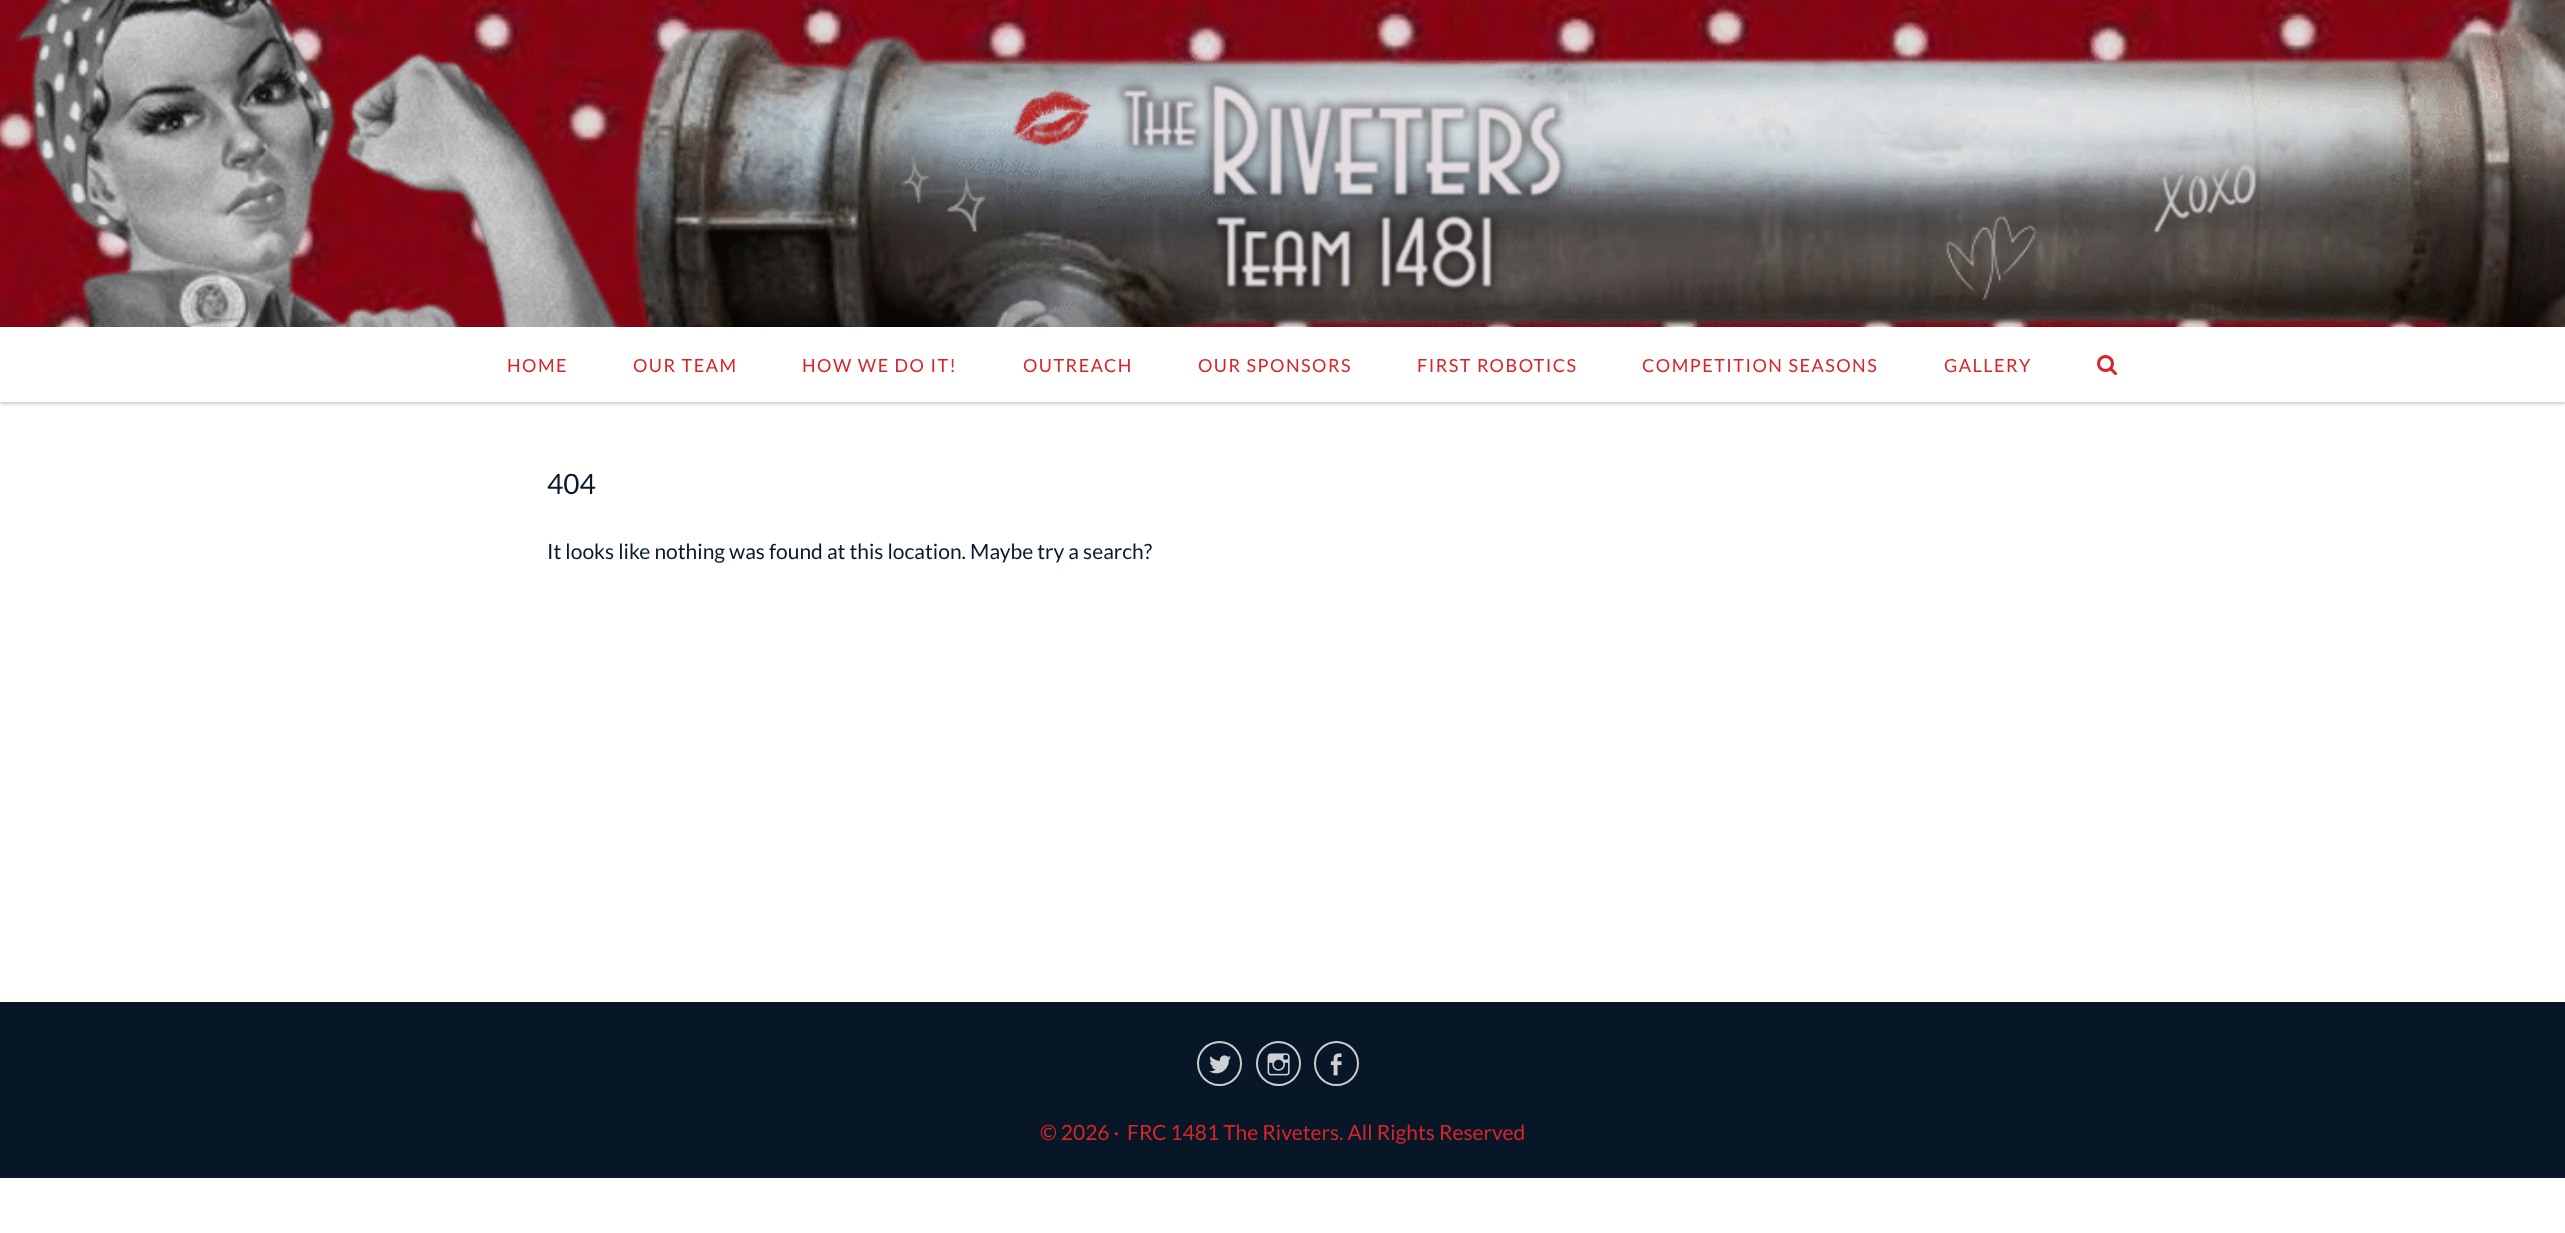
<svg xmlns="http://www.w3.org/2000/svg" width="2565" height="1233">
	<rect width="100%" height="100%" fill="#FFFFFF" />
	<image x="0" y="0" width="2565" height="327" href="assets/img1.png" />
	<rect x="0" y="329" width="2565" height="75" fill="#000000" fill-opacity="0.2" filter="blur(1.5px)" />
	<rect x="0" y="327" width="2565" height="75" fill="#FFFFFF" />
	<g font-family="Lato" font-size="18" letter-spacing="1.5" fill="#D92429">
		<text x="507" y="372">HOME</text>
		<text x="633" y="372">OUR TEAM</text>
		<text x="802" y="372">HOW WE DO IT!</text>
		<text x="1023" y="372">OUTREACH</text>
		<text x="1198" y="372">OUR SPONSORS</text>
		<text x="1417" y="372">FIRST ROBOTICS</text>
		<text x="1642" y="372">COMPETITION SEASONS</text>
		<text x="1944" y="372">GALLERY</text>
	</g>
	<image x="2097" y="355" width="20" height="21" href="assets/img2.png" />
	<text x="547" y="494" font-family="Lato" font-size="28" fill="#091A2C">404</text>
	<text x="547" y="559" font-family="Lato" font-size="21" fill="#091A2C">It looks like nothing was found at this location. Maybe try a search?</text>
	<rect x="0" y="1002" width="2565" height="176" fill="#081728" />
	<circle cx="1219.5" cy="1063.5" r="21.5" fill="none" stroke="#CCCCCC" stroke-width="2" />
	<image x="1209" y="1055" width="22" height="19" href="assets/img3.png" />
	<circle cx="1278.5" cy="1063.5" r="21.5" fill="none" stroke="#CCCCCC" stroke-width="2" />
	<image x="1267" y="1053" width="23" height="23" href="assets/img4.png" />
	<circle cx="1336.5" cy="1063.5" r="21.5" fill="none" stroke="#CCCCCC" stroke-width="2" />
	<image x="1330" y="1053" width="12" height="23" href="assets/img5.png" />
	<g font-family="Lato" font-size="21" fill="#D92429">
		<text x="1040" y="1140">© 2026 ·</text>
		<text x="1127" y="1140">FRC 1481 The Riveters. All Rights Reserved</text>
	</g>
</svg>
